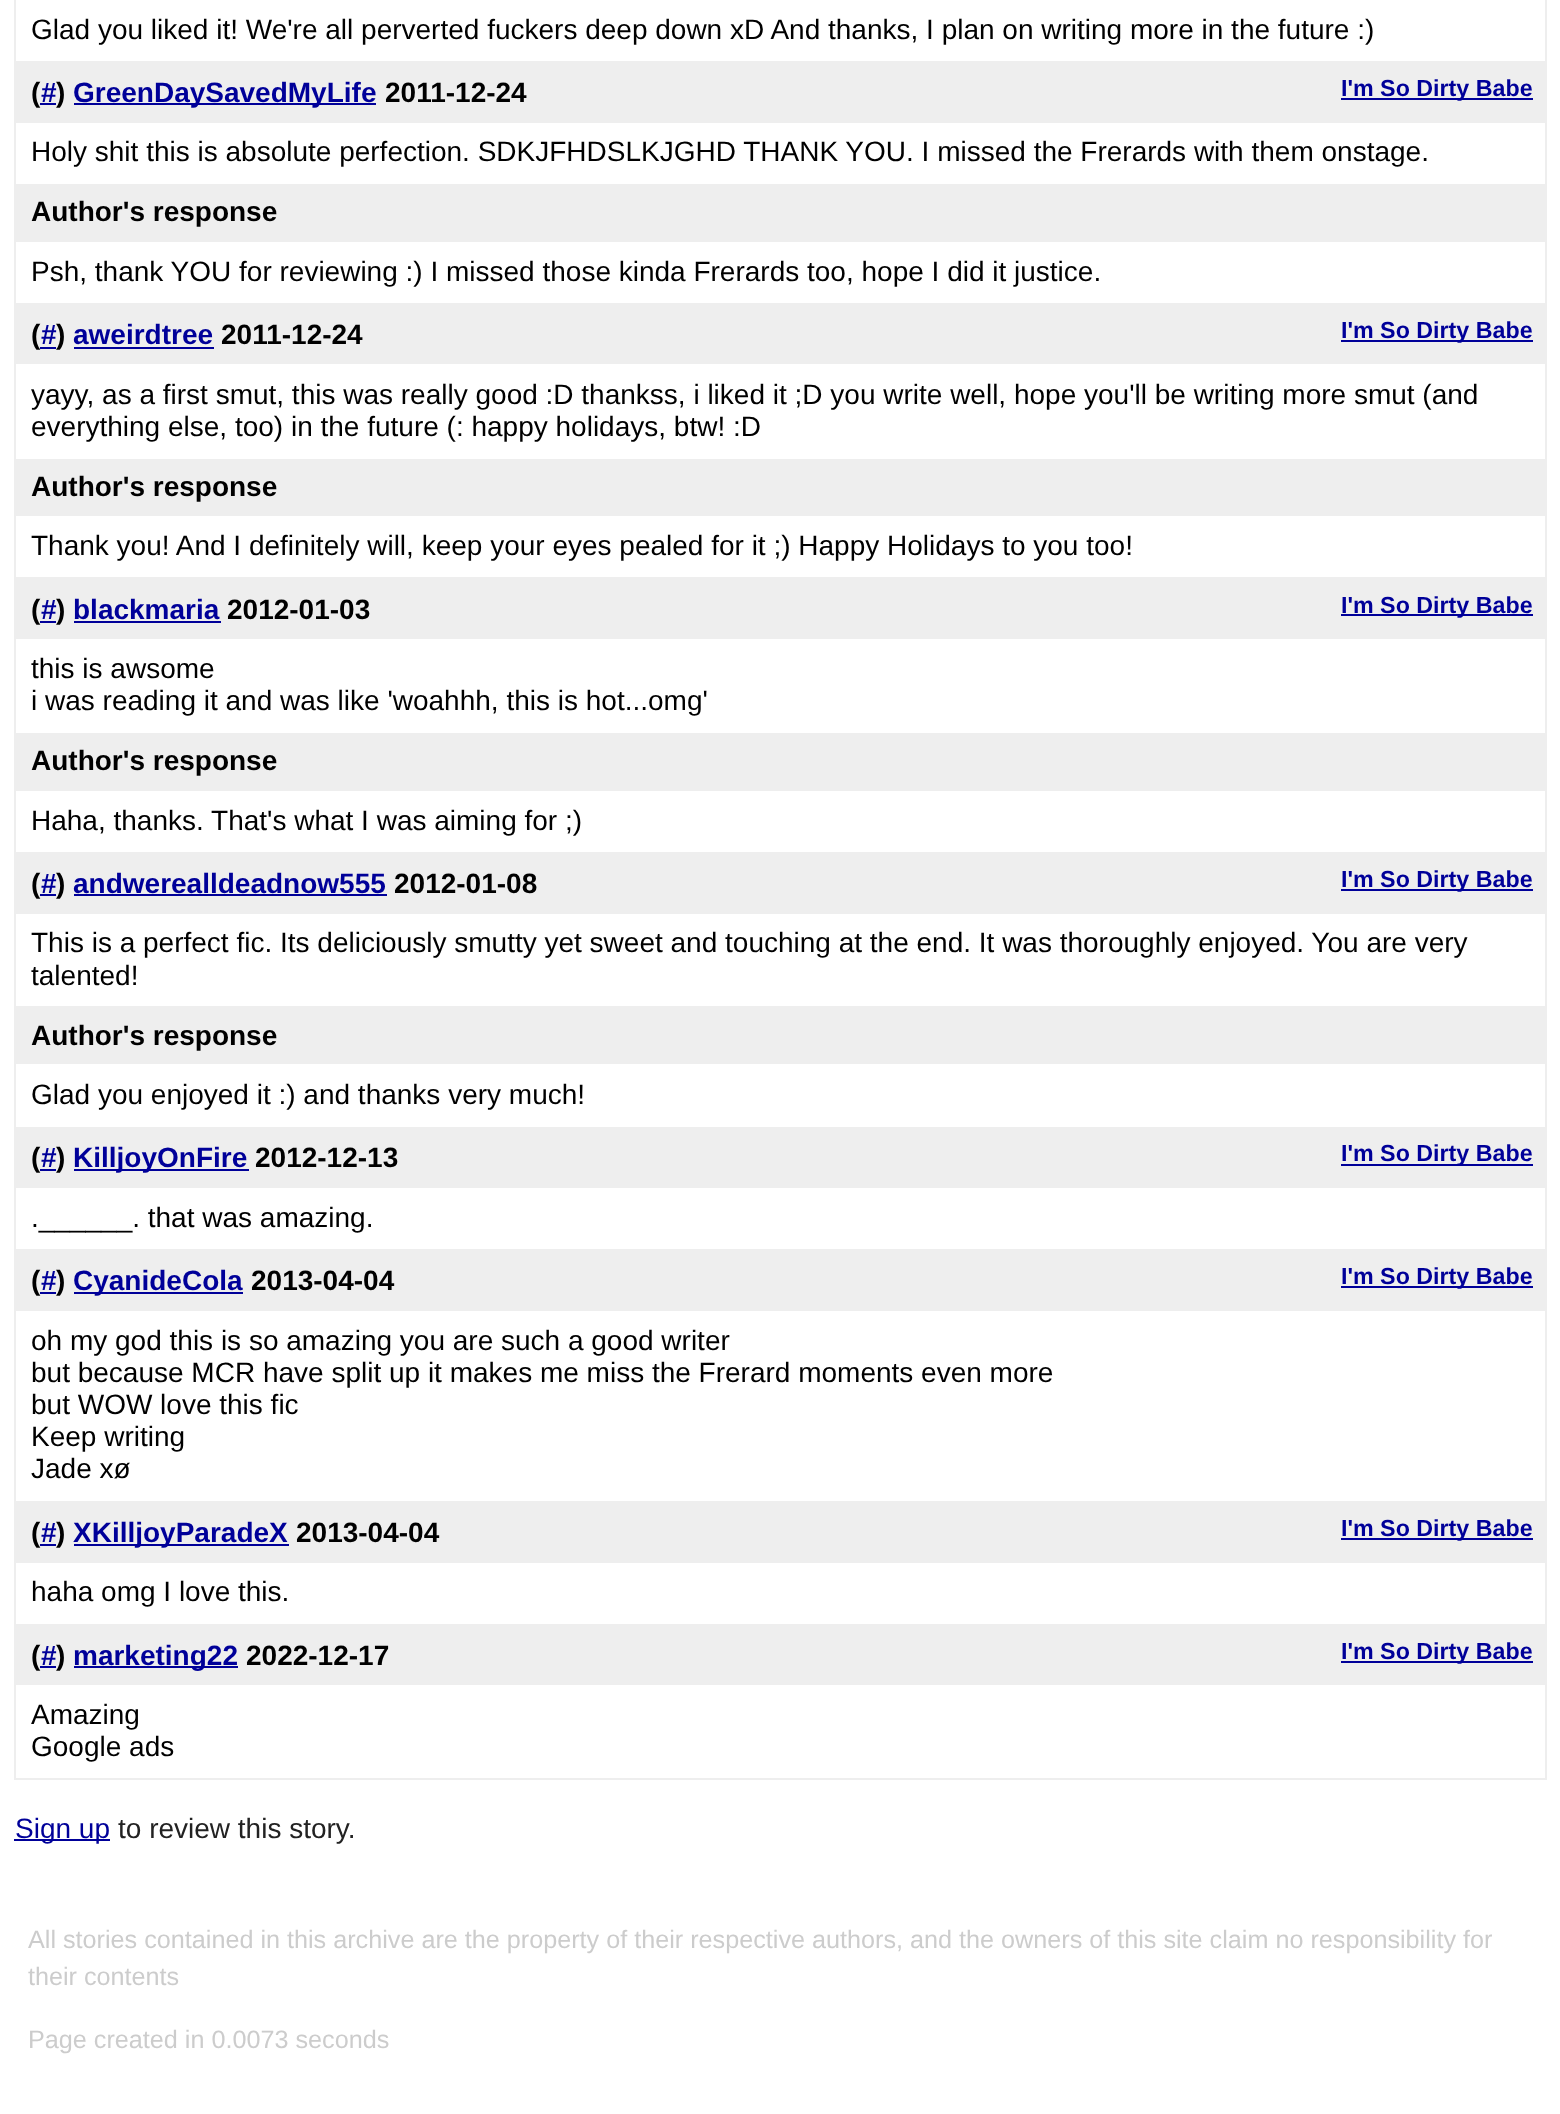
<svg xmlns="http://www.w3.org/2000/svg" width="1560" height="2114">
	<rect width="100%" height="100%" fill="#FFFFFF" />
	<rect x="15" y="-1" width="1531" height="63" fill="none" stroke="#EEEEEE" stroke-width="2" />
	<text x="31" y="39" font-family="Liberation Sans" font-size="28" fill="#000000">Glad you liked it! We're all perverted fuckers deep down xD And thanks, I plan on writing more in the future :)</text>
	<rect x="15" y="64" width="1531" height="240" fill="none" stroke="#EEEEEE" stroke-width="2" />
	<rect x="16" y="65" width="1529" height="58" fill="#EEEEEE" />
	<text x="31" y="102" font-family="Liberation Sans" font-size="28" font-weight="700" fill="#000000">(</text>
	<text x="41" y="102" font-family="Liberation Sans" font-size="28" font-weight="700" fill="#000099">#</text>
	<rect x="40" y="103" width="16" height="2" fill="#000099" />
	<text x="56" y="102" font-family="Liberation Sans" font-size="28" font-weight="700" fill="#000000">)</text>
	<rect x="74" y="103" width="302" height="2" fill="#000099" />
	<text x="73" y="102" font-family="Liberation Sans" font-size="28" font-weight="700" fill="#000099">GreenDaySavedMyLife</text>
	<text x="385" y="102" font-family="Liberation Sans" font-size="28" font-weight="700" fill="#000000">2011-12-24</text>
	<rect x="1341" y="98" width="192" height="2" fill="#000099" />
	<text x="1341" y="96" font-family="Liberation Sans" font-size="23.25" font-weight="700" fill="#000099">I'm So Dirty Babe</text>
	<text x="31" y="161" font-family="Liberation Sans" font-size="28" fill="#000000">Holy shit this is absolute perfection. SDKJFHDSLKJGHD THANK YOU. I missed the Frerards with them onstage.</text>
	<rect x="16" y="184" width="1529" height="58" fill="#EEEEEE" />
	<text x="31" y="221" font-family="Liberation Sans" font-size="28" font-weight="700" fill="#000000">Author's response</text>
	<text x="31" y="281" font-family="Liberation Sans" font-size="28" fill="#000000">Psh, thank YOU for reviewing :) I missed those kinda Frerards too, hope I did it justice.</text>
	<rect x="15" y="306" width="1531" height="272" fill="none" stroke="#EEEEEE" stroke-width="2" />
	<rect x="16" y="307" width="1529" height="57" fill="#EEEEEE" />
	<text x="31" y="344" font-family="Liberation Sans" font-size="28" font-weight="700" fill="#000000">(</text>
	<text x="41" y="344" font-family="Liberation Sans" font-size="28" font-weight="700" fill="#000099">#</text>
	<rect x="40" y="347" width="16" height="2" fill="#000099" />
	<text x="56" y="344" font-family="Liberation Sans" font-size="28" font-weight="700" fill="#000000">)</text>
	<text x="73" y="344" font-family="Liberation Sans" font-size="28" font-weight="700" fill="#000099">aweirdtree</text>
	<rect x="74" y="347" width="140" height="2" fill="#000099" />
	<text x="221" y="344" font-family="Liberation Sans" font-size="28" font-weight="700" fill="#000000">2011-12-24</text>
	<rect x="1341" y="340" width="192" height="2" fill="#000099" />
	<text x="1341" y="338" font-family="Liberation Sans" font-size="23.25" font-weight="700" fill="#000099">I'm So Dirty Babe</text>
	<g font-family="Liberation Sans" font-size="28" fill="#000000">
		<text x="31" y="404">yayy, as a first smut, this was really good :D thankss, i liked it ;D you write well, hope you'll be writing more smut (and</text>
		<text x="31" y="436">everything else, too) in the future (: happy holidays, btw! :D</text>
	</g>
	<rect x="16" y="459" width="1529" height="57" fill="#EEEEEE" />
	<text x="31" y="496" font-family="Liberation Sans" font-size="28" font-weight="700" fill="#000000">Author's response</text>
	<text x="31" y="555" font-family="Liberation Sans" font-size="28" fill="#000000">Thank you! And I definitely will, keep your eyes pealed for it ;) Happy Holidays to you too!</text>
	<rect x="15" y="580" width="1531" height="273" fill="none" stroke="#EEEEEE" stroke-width="2" />
	<rect x="16" y="581" width="1529" height="58" fill="#EEEEEE" />
	<text x="31" y="619" font-family="Liberation Sans" font-size="28" font-weight="700" fill="#000000">(</text>
	<text x="41" y="619" font-family="Liberation Sans" font-size="28" font-weight="700" fill="#000099">#</text>
	<rect x="40" y="621" width="16" height="2" fill="#000099" />
	<text x="56" y="619" font-family="Liberation Sans" font-size="28" font-weight="700" fill="#000000">)</text>
	<text x="73" y="619" font-family="Liberation Sans" font-size="28" font-weight="700" fill="#000099">blackmaria</text>
	<rect x="74" y="621" width="147" height="2" fill="#000099" />
	<text x="227" y="619" font-family="Liberation Sans" font-size="28" font-weight="700" fill="#000000">2012-01-03</text>
	<rect x="1341" y="614" width="192" height="2" fill="#000099" />
	<text x="1341" y="613" font-family="Liberation Sans" font-size="23.25" font-weight="700" fill="#000099">I'm So Dirty Babe</text>
	<g font-family="Liberation Sans" font-size="28" fill="#000000">
		<text x="31" y="678">this is awsome</text>
		<text x="31" y="710">i was reading it and was like 'woahhh, this is hot...omg'</text>
	</g>
	<rect x="16" y="733" width="1529" height="58" fill="#EEEEEE" />
	<text x="31" y="770" font-family="Liberation Sans" font-size="28" font-weight="700" fill="#000000">Author's response</text>
	<text x="31" y="830" font-family="Liberation Sans" font-size="28" fill="#000000">Haha, thanks. That's what I was aiming for ;)</text>
	<rect x="15" y="855" width="1531" height="273" fill="none" stroke="#EEEEEE" stroke-width="2" />
	<rect x="16" y="856" width="1529" height="58" fill="#EEEEEE" />
	<text x="31" y="893" font-family="Liberation Sans" font-size="28" font-weight="700" fill="#000000">(</text>
	<text x="41" y="893" font-family="Liberation Sans" font-size="28" font-weight="700" fill="#000099">#</text>
	<rect x="40" y="894" width="16" height="2" fill="#000099" />
	<text x="56" y="893" font-family="Liberation Sans" font-size="28" font-weight="700" fill="#000000">)</text>
	<text x="73" y="893" font-family="Liberation Sans" font-size="28" font-weight="700" fill="#000099">andwerealldeadnow555</text>
	<rect x="74" y="894" width="313" height="2" fill="#000099" />
	<text x="394" y="893" font-family="Liberation Sans" font-size="28" font-weight="700" fill="#000000">2012-01-08</text>
	<rect x="1341" y="889" width="192" height="2" fill="#000099" />
	<text x="1341" y="887" font-family="Liberation Sans" font-size="23.25" font-weight="700" fill="#000099">I'm So Dirty Babe</text>
	<g font-family="Liberation Sans" font-size="28" fill="#000000">
		<text x="31" y="952">This is a perfect fic. Its deliciously smutty yet sweet and touching at the end. It was thoroughly enjoyed. You are very</text>
		<text x="31" y="985">talented!</text>
	</g>
	<rect x="16" y="1006" width="1529" height="58" fill="#EEEEEE" />
	<text x="31" y="1045" font-family="Liberation Sans" font-size="28" font-weight="700" fill="#000000">Author's response</text>
	<text x="31" y="1104" font-family="Liberation Sans" font-size="28" fill="#000000">Glad you enjoyed it :) and thanks very much!</text>
	<rect x="15" y="1130" width="1531" height="120" fill="none" stroke="#EEEEEE" stroke-width="2" />
	<rect x="16" y="1131" width="1529" height="57" fill="#EEEEEE" />
	<text x="31" y="1167" font-family="Liberation Sans" font-size="28" font-weight="700" fill="#000000">(</text>
	<text x="41" y="1167" font-family="Liberation Sans" font-size="28" font-weight="700" fill="#000099">#</text>
	<rect x="40" y="1169" width="16" height="2" fill="#000099" />
	<text x="56" y="1167" font-family="Liberation Sans" font-size="28" font-weight="700" fill="#000000">)</text>
	<rect x="74" y="1169" width="175" height="2" fill="#000099" />
	<text x="73" y="1167" font-family="Liberation Sans" font-size="28" font-weight="700" fill="#000099">KilljoyOnFire</text>
	<text x="255" y="1167" font-family="Liberation Sans" font-size="28" font-weight="700" fill="#000000">2012-12-13</text>
	<rect x="1341" y="1164" width="192" height="2" fill="#000099" />
	<text x="1341" y="1161" font-family="Liberation Sans" font-size="23.25" font-weight="700" fill="#000099">I'm So Dirty Babe</text>
	<text x="31" y="1227" font-family="Liberation Sans" font-size="28" fill="#000000">.______. that was amazing.</text>
	<rect x="15" y="1252" width="1531" height="250" fill="none" stroke="#EEEEEE" stroke-width="2" />
	<rect x="16" y="1253" width="1529" height="58" fill="#EEEEEE" />
	<text x="31" y="1290" font-family="Liberation Sans" font-size="28" font-weight="700" fill="#000000">(</text>
	<text x="41" y="1290" font-family="Liberation Sans" font-size="28" font-weight="700" fill="#000099">#</text>
	<rect x="40" y="1292" width="16" height="2" fill="#000099" />
	<text x="56" y="1290" font-family="Liberation Sans" font-size="28" font-weight="700" fill="#000000">)</text>
	<rect x="74" y="1292" width="169" height="2" fill="#000099" />
	<text x="73" y="1290" font-family="Liberation Sans" font-size="28" font-weight="700" fill="#000099">CyanideCola</text>
	<text x="251" y="1290" font-family="Liberation Sans" font-size="28" font-weight="700" fill="#000000">2013-04-04</text>
	<rect x="1341" y="1286" width="192" height="2" fill="#000099" />
	<text x="1341" y="1284" font-family="Liberation Sans" font-size="23.25" font-weight="700" fill="#000099">I'm So Dirty Babe</text>
	<g font-family="Liberation Sans" font-size="28" fill="#000000">
		<text x="31" y="1350">oh my god this is so amazing you are such a good writer</text>
		<text x="31" y="1382">but because MCR have split up it makes me miss the Frerard moments even more</text>
		<text x="31" y="1414">but WOW love this fic</text>
		<text x="31" y="1446">Keep writing</text>
		<text x="31" y="1478">Jade xø</text>
	</g>
	<rect x="15" y="1504" width="1531" height="121" fill="none" stroke="#EEEEEE" stroke-width="2" />
	<rect x="16" y="1505" width="1529" height="58" fill="#EEEEEE" />
	<text x="31" y="1542" font-family="Liberation Sans" font-size="28" font-weight="700" fill="#000000">(</text>
	<text x="41" y="1542" font-family="Liberation Sans" font-size="28" font-weight="700" fill="#000099">#</text>
	<rect x="40" y="1544" width="16" height="2" fill="#000099" />
	<text x="56" y="1542" font-family="Liberation Sans" font-size="28" font-weight="700" fill="#000000">)</text>
	<rect x="74" y="1544" width="215" height="2" fill="#000099" />
	<text x="73" y="1542" font-family="Liberation Sans" font-size="28" font-weight="700" fill="#000099">XKilljoyParadeX</text>
	<text x="296" y="1542" font-family="Liberation Sans" font-size="28" font-weight="700" fill="#000000">2013-04-04</text>
	<rect x="1341" y="1538" width="192" height="2" fill="#000099" />
	<text x="1341" y="1536" font-family="Liberation Sans" font-size="23.25" font-weight="700" fill="#000099">I'm So Dirty Babe</text>
	<text x="31" y="1601" font-family="Liberation Sans" font-size="28" fill="#000000">haha omg I love this.</text>
	<rect x="15" y="1627" width="1531" height="152" fill="none" stroke="#EEEEEE" stroke-width="2" />
	<rect x="16" y="1628" width="1529" height="57" fill="#EEEEEE" />
	<text x="31" y="1665" font-family="Liberation Sans" font-size="28" font-weight="700" fill="#000000">(</text>
	<text x="41" y="1665" font-family="Liberation Sans" font-size="28" font-weight="700" fill="#000099">#</text>
	<rect x="40" y="1666" width="16" height="2" fill="#000099" />
	<text x="56" y="1665" font-family="Liberation Sans" font-size="28" font-weight="700" fill="#000000">)</text>
	<rect x="74" y="1666" width="164" height="2" fill="#000099" />
	<text x="73" y="1665" font-family="Liberation Sans" font-size="28" font-weight="700" fill="#000099">marketing22</text>
	<text x="246" y="1665" font-family="Liberation Sans" font-size="28" font-weight="700" fill="#000000">2022-12-17</text>
	<rect x="1341" y="1661" width="192" height="2" fill="#000099" />
	<text x="1341" y="1659" font-family="Liberation Sans" font-size="23.25" font-weight="700" fill="#000099">I'm So Dirty Babe</text>
	<g font-family="Liberation Sans" font-size="28" fill="#000000">
		<text x="31" y="1724">Amazing</text>
		<text x="31" y="1756">Google ads</text>
	</g>
	<rect x="14" y="1839" width="96" height="2" fill="#000099" />
	<text x="15" y="1838" font-family="Liberation Sans" font-size="28" fill="#000099">Sign up</text>
	<text x="118" y="1838" font-family="Liberation Sans" font-size="28" fill="#222222">to review this story.</text>
	<g font-family="Liberation Sans" font-size="25.2" fill="#CCCCCC">
		<text x="28" y="1948">All stories contained in this archive are the property of their respective authors, and the owners of this site claim no responsibility for</text>
		<text x="28" y="1985">their contents</text>
		<text x="28" y="2048">Page created in 0.0073 seconds</text>
	</g>
</svg>
